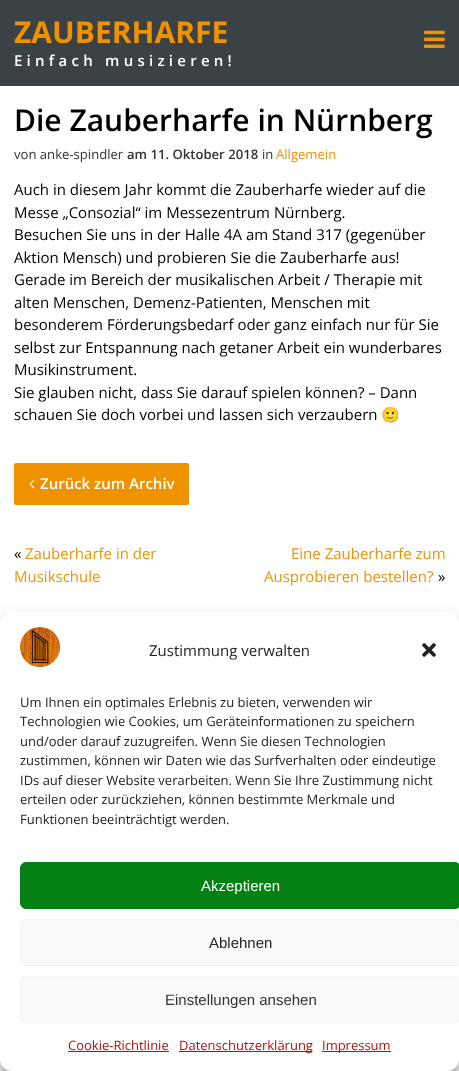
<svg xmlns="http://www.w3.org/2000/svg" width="459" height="1071">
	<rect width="100%" height="100%" fill="#3A4245" />
	<text x="14" y="43" font-family="Open Sans" font-size="30" font-weight="700" fill="#EF9200">ZAUBERHARFE</text>
	<text x="14" y="66" font-family="Open Sans" font-size="15" font-weight="600" letter-spacing="4.25" fill="#FFFFFF">Einfach musizieren!</text>
	<image x="424" y="30" width="21" height="18" href="assets/img1.png" />
	<rect x="0" y="86" width="459" height="985" fill="#FFFFFF" />
	<text x="14" y="131" font-family="Open Sans" font-size="30" font-weight="600" fill="#000000">Die Zauberharfe in Nürnberg</text>
	<text x="14" y="159" font-family="Open Sans" font-size="13.1" fill="#333333">von anke-spindler</text>
	<text x="127" y="159" font-family="Open Sans" font-size="13.1" font-weight="600" fill="#333333">am 11. Oktober 2018</text>
	<text x="262" y="159" font-family="Open Sans" font-size="13.1" fill="#333333">in</text>
	<text x="276" y="159" font-family="Open Sans" font-size="13.1" fill="#EF9200">Allgemein</text>
	<g font-family="Open Sans" font-size="15" fill="#000000">
		<text x="14" y="195">Auch in diesem Jahr kommt die Zauberharfe wieder auf die</text>
		<text x="14" y="218">Messe „Consozial“ im Messezentrum Nürnberg.</text>
		<text x="14" y="240">Besuchen Sie uns in der Halle 4A am Stand 317 (gegenüber</text>
		<text x="14" y="263">Aktion Mensch) und probieren Sie die Zauberharfe aus!</text>
		<text x="14" y="285">Gerade im Bereich der musikalischen Arbeit / Therapie mit</text>
		<text x="14" y="308">alten Menschen, Demenz-Patienten, Menschen mit</text>
		<text x="14" y="330">besonderem Förderungsbedarf oder ganz einfach nur für Sie</text>
		<text x="14" y="353">selbst zur Entspannung nach getaner Arbeit ein wunderbares</text>
		<text x="14" y="375">Musikinstrument.</text>
		<text x="14" y="398">Sie glauben nicht, dass Sie darauf spielen können? – Dann</text>
		<text x="14" y="420">schauen Sie doch vorbei und lassen sich verzaubern</text>
	</g>
	<text x="381" y="420" font-family="Noto Color Emoji" font-size="15" fill="#000000">🙂</text>
	<rect x="14" y="463" width="175" height="42" rx="2" fill="#EF9200" />
	<image x="29" y="480" width="6" height="9" href="assets/img2.png" />
	<text x="40" y="489" font-family="Open Sans" font-size="15" font-weight="600" fill="#FFFFFF">Zurück zum Archiv</text>
	<text x="14" y="559" font-family="Open Sans" font-size="15" fill="#000000">«</text>
	<g font-family="Open Sans" font-size="15" fill="#EF9200">
		<text x="25" y="559">Zauberharfe in der</text>
		<text x="14" y="582">Musikschule</text>
		<text x="291" y="559">Eine Zauberharfe zum</text>
		<text x="264" y="582">Ausprobieren bestellen?</text>
	</g>
	<text x="438" y="582" font-family="Open Sans" font-size="15" fill="#000000">»</text>
	<rect x="0" y="618" width="459" height="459" rx="12" fill="#000000" fill-opacity="0.23" filter="blur(3px)" />
	<rect x="0" y="622" width="459" height="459" rx="12" fill="#000000" fill-opacity="0.19" filter="blur(10px)" />
	<rect x="0" y="612" width="459" height="459" rx="12" fill="#FFFFFF" />
	<image x="20" y="627" width="40" height="40" href="assets/img3.png" />
	<text x="149" y="656" font-family="Open Sans" font-size="15" fill="#222222">Zustimmung verwalten</text>
	<image x="422" y="643" width="14" height="14" href="assets/img4.png" />
	<g font-family="Open Sans" font-size="13" fill="#222222">
		<text x="20" y="707">Um Ihnen ein optimales Erlebnis zu bieten, verwenden wir</text>
		<text x="20" y="726">Technologien wie Cookies, um Geräteinformationen zu speichern</text>
		<text x="20" y="746">und/oder darauf zuzugreifen. Wenn Sie diesen Technologien</text>
		<text x="20" y="765">zustimmen, können wir Daten wie das Surfverhalten oder eindeutige</text>
		<text x="20" y="785">IDs auf dieser Website verarbeiten. Wenn Sie Ihre Zustimmung nicht</text>
		<text x="20" y="804">erteilen oder zurückziehen, können bestimmte Merkmale und</text>
		<text x="20" y="824">Funktionen beeinträchtigt werden.</text>
	</g>
	<rect x="20.5" y="862.5" width="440" height="46" rx="5.5" fill="#058012" stroke="#058012" />
	<text x="201" y="891" font-family="Liberation Sans" font-size="15" fill="#FFFFFF">Akzeptieren</text>
	<rect x="20.5" y="919.5" width="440" height="46" rx="5.5" fill="#F9F9F9" stroke="#F2F2F2" />
	<text x="209" y="948" font-family="Liberation Sans" font-size="15" fill="#222222">Ablehnen</text>
	<rect x="20.5" y="976.5" width="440" height="46" rx="5.5" fill="#F9F9F9" stroke="#F2F2F2" />
	<text x="165" y="1005" font-family="Liberation Sans" font-size="15" fill="#333333">Einstellungen ansehen</text>
	<text x="68" y="1050" font-family="Open Sans" font-size="13" fill="#B70E0B">Cookie-Richtlinie</text>
	<rect x="68" y="1051" width="101" height="1" fill="#B70E0B" />
	<rect x="179" y="1051" width="133" height="1" fill="#B70E0B" />
	<text x="179" y="1050" font-family="Open Sans" font-size="13" fill="#B70E0B">Datenschutzerklärung</text>
	<rect x="322" y="1051" width="69" height="1" fill="#B70E0B" />
	<text x="322" y="1050" font-family="Open Sans" font-size="13" fill="#B70E0B">Impressum</text>
</svg>
